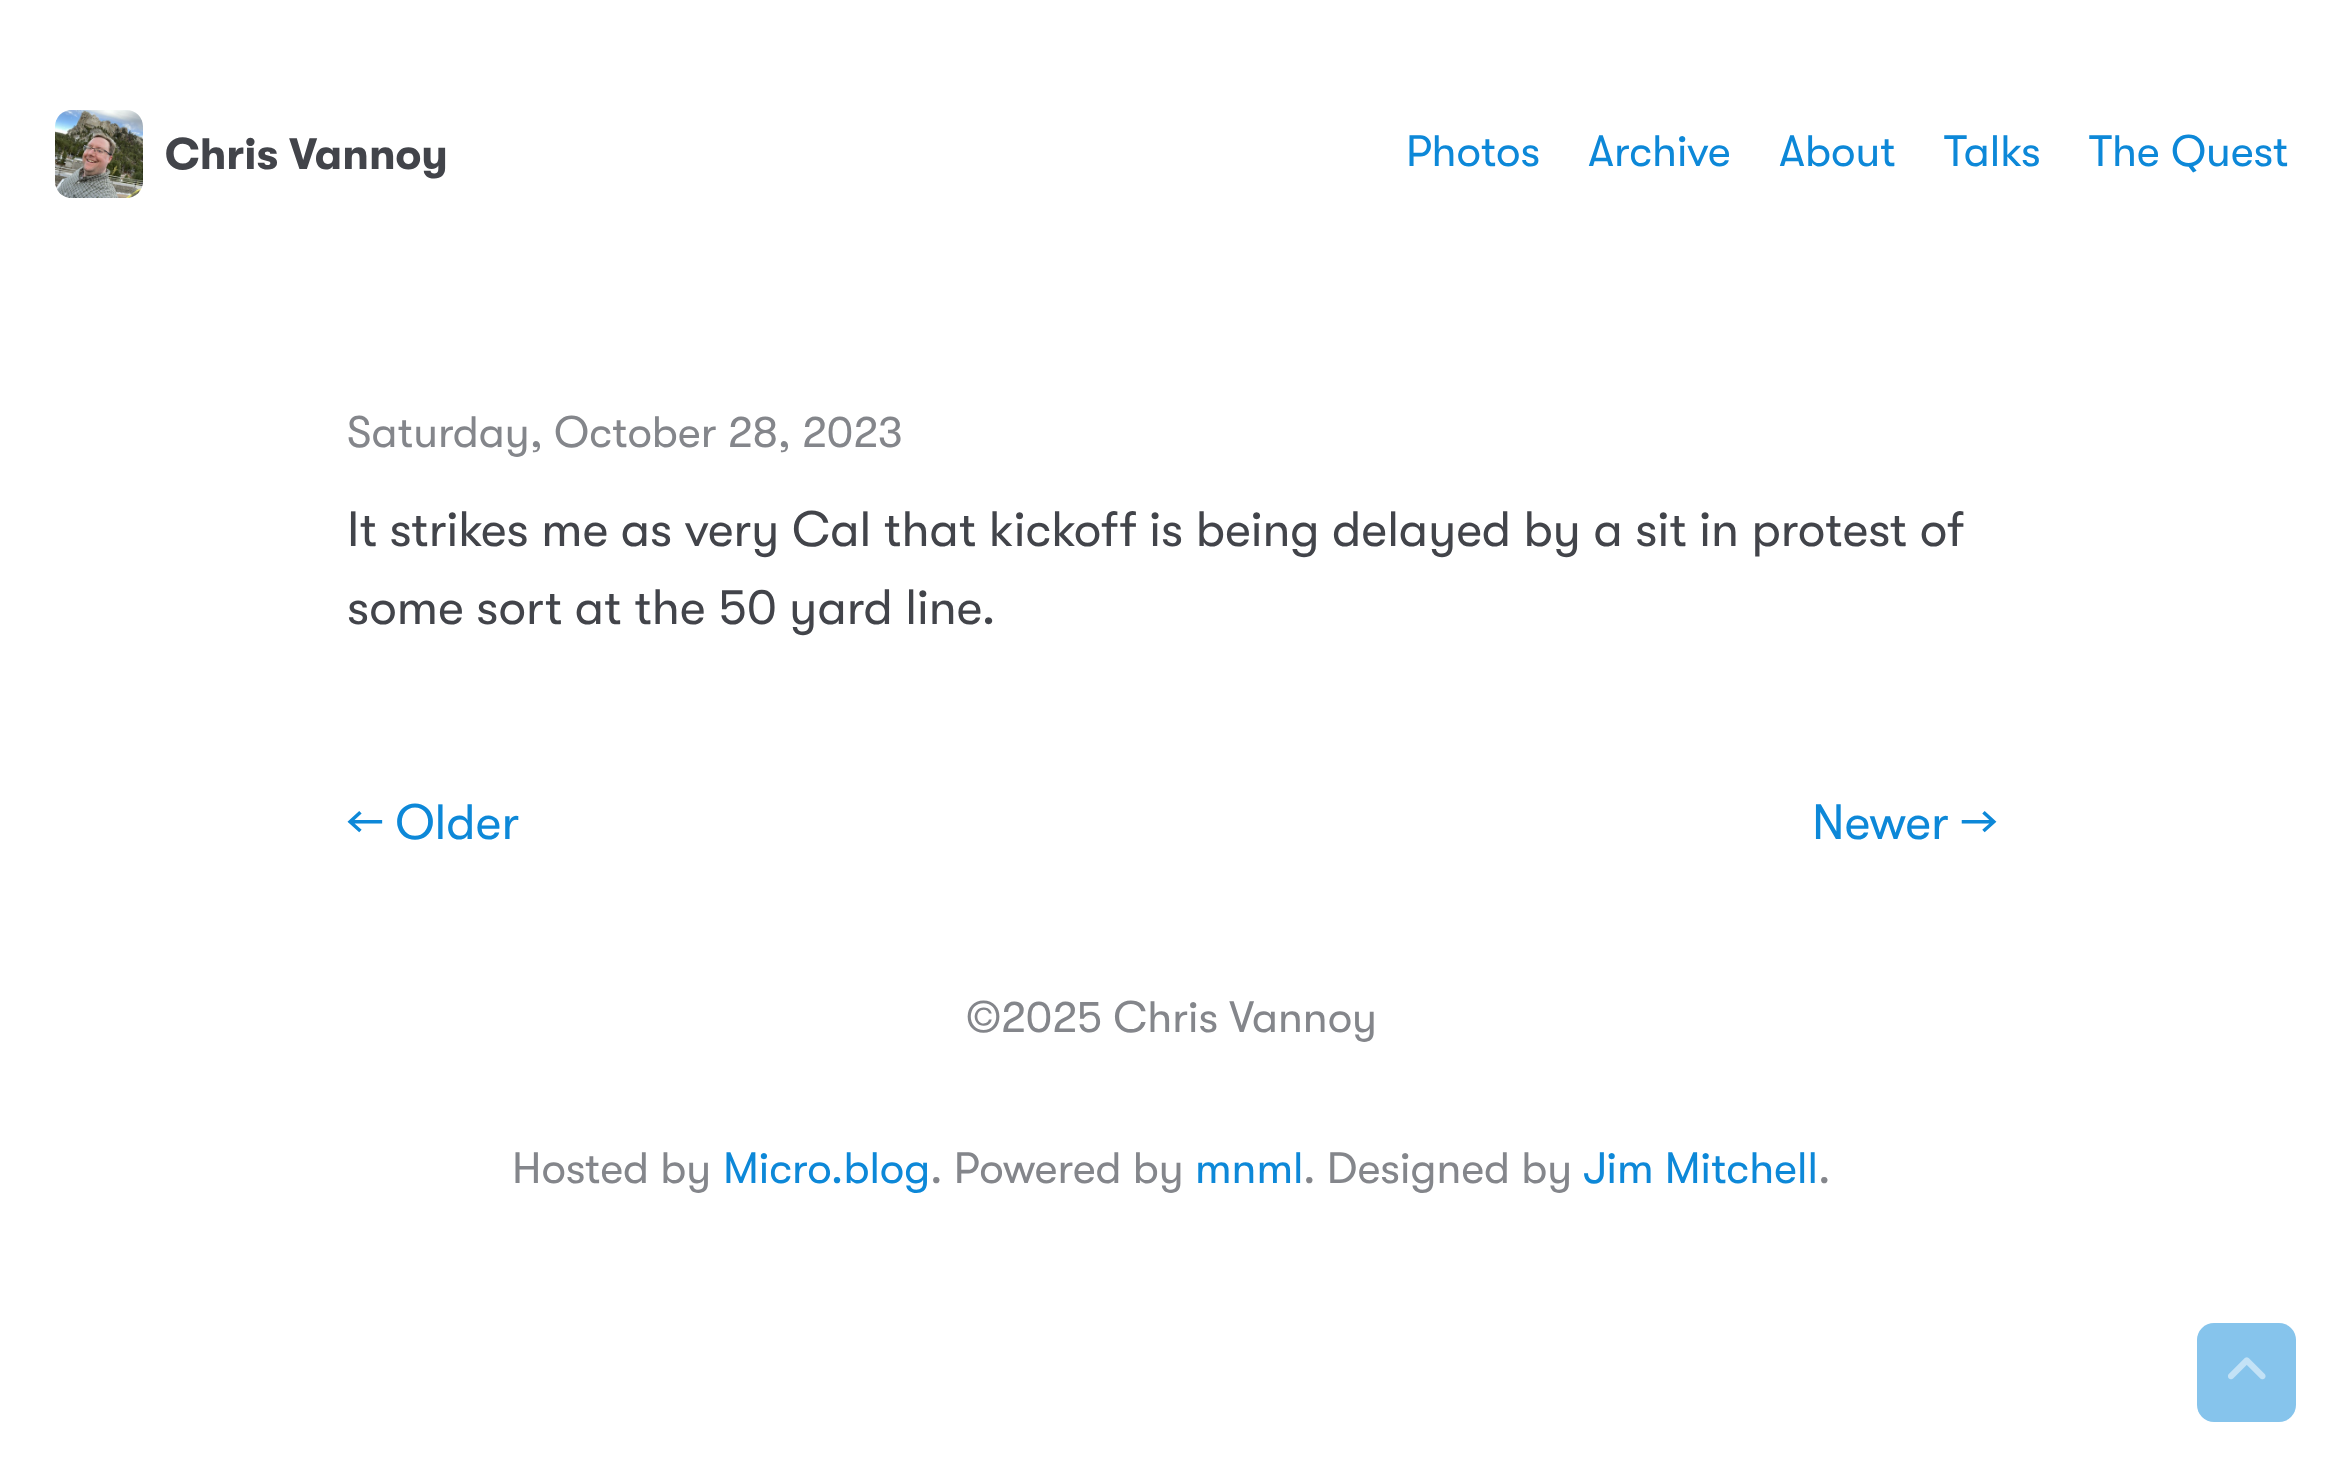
<svg xmlns="http://www.w3.org/2000/svg" width="2342" height="1466">
	<rect width="100%" height="100%" fill="#FFFFFF" />
	<image x="55" y="110" width="88" height="88" href="assets/img1.png" />
	<text x="165" y="169" font-family="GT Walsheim" font-size="44" font-weight="700" fill="#42444A">Chris Vannoy</text>
	<g font-family="GT Walsheim" font-size="44" fill="#0D88D8">
		<text x="1406" y="166">Photos</text>
		<text x="1588" y="166">Archive</text>
		<text x="1779" y="166">About</text>
		<text x="1944" y="166">Talks</text>
		<text x="2089" y="166">The Quest</text>
	</g>
	<text x="347" y="447" font-family="GT Walsheim" font-size="44" fill="#84868B">Saturday, October 28, 2023</text>
	<g font-family="GT Walsheim" font-size="49.5" fill="#42444A">
		<text x="347" y="546">It strikes me as very Cal that kickoff is being delayed by a sit in protest of</text>
		<text x="347" y="624">some sort at the 50 yard line.</text>
	</g>
	<g font-family="GT Walsheim" font-size="49.5" fill="#0D88D8">
		<text x="347" y="839">← Older</text>
		<text x="1812" y="839">Newer →</text>
	</g>
	<g font-family="GT Walsheim" font-size="44" fill="#84868B">
		<text x="966" y="1032">©2025 Chris Vannoy</text>
		<text x="512" y="1183">Hosted by</text>
	</g>
	<text x="723" y="1183" font-family="GT Walsheim" font-size="44" fill="#0D88D8">Micro.blog</text>
	<text x="930" y="1183" font-family="GT Walsheim" font-size="44" fill="#84868B">. Powered by</text>
	<text x="1195" y="1183" font-family="GT Walsheim" font-size="44" fill="#0D88D8">mnml</text>
	<text x="1303" y="1183" font-family="GT Walsheim" font-size="44" fill="#84868B">. Designed by</text>
	<text x="1583" y="1183" font-family="GT Walsheim" font-size="44" fill="#0D88D8">Jim Mitchell</text>
	<text x="1818" y="1183" font-family="GT Walsheim" font-size="44" fill="#84868B">.</text>
	<rect x="2197" y="1323" width="99" height="99" rx="17" fill="#86C4EC" />
	<image x="2228" y="1357" width="38" height="23" href="assets/img2.png" />
</svg>
